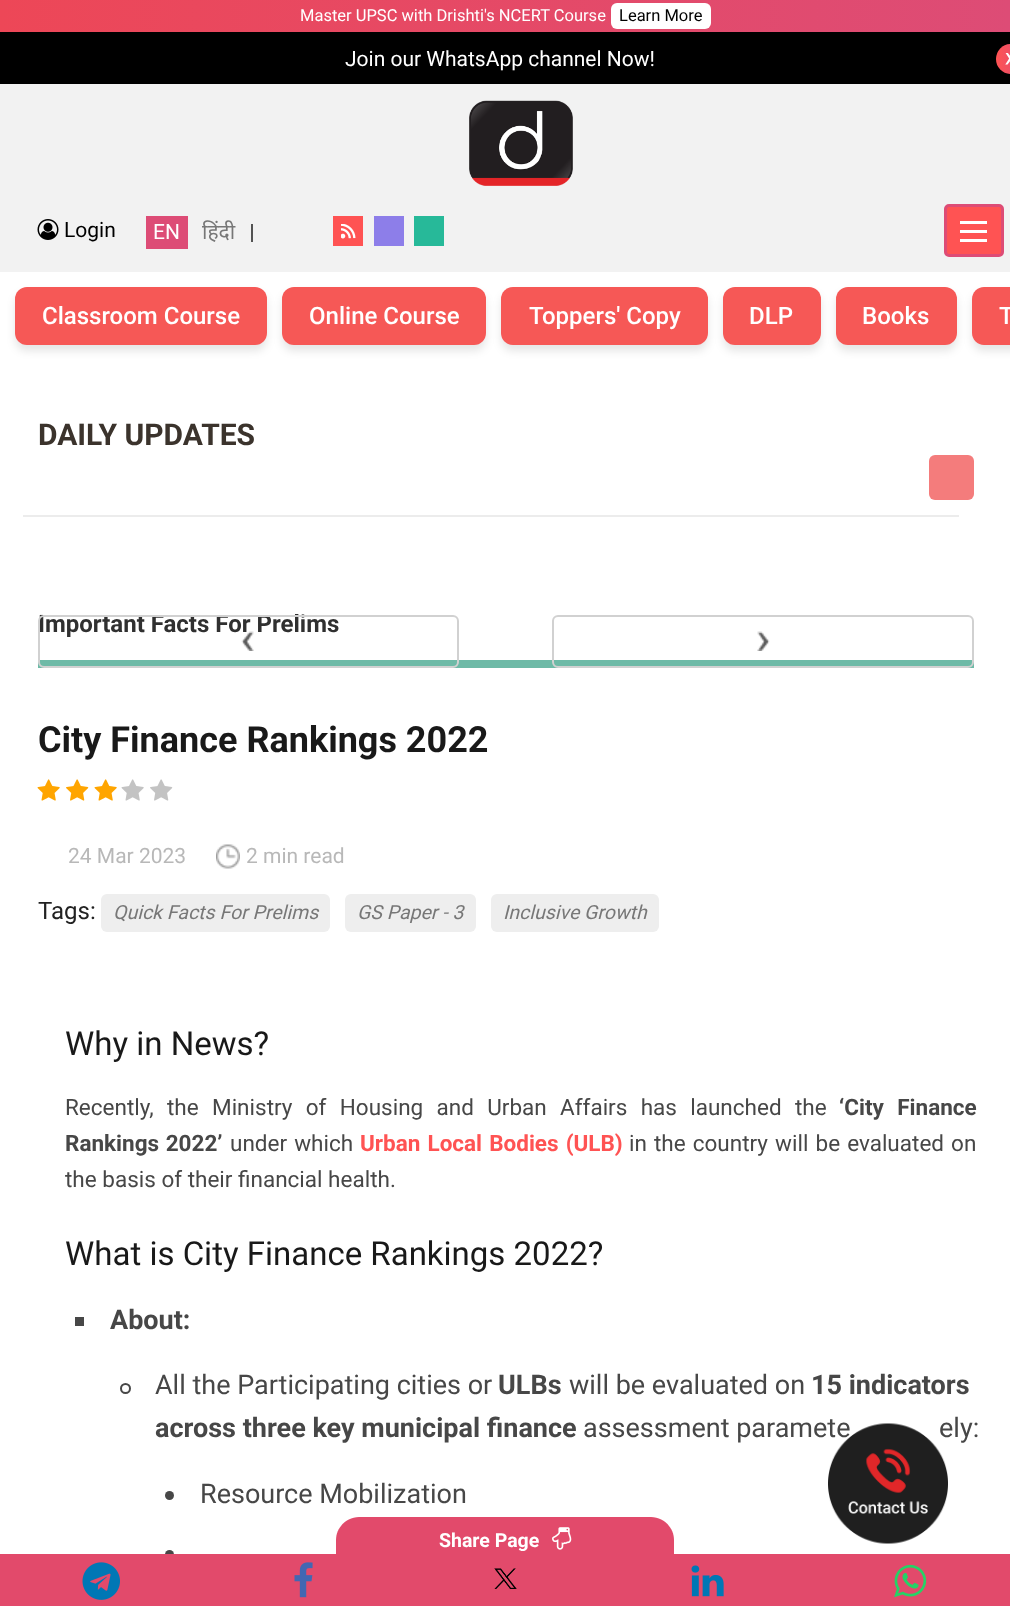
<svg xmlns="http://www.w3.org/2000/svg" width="1010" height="1606">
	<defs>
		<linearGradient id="g1" gradientUnits="userSpaceOnUse" x1="0" y1="16" x2="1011" y2="16"><stop offset="0" stop-color="#ED4757" /><stop offset="1" stop-color="#DD4C76" /></linearGradient>
		<linearGradient id="g2" gradientUnits="userSpaceOnUse" x1="996" y1="59" x2="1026" y2="59"><stop offset="0" stop-color="#FF5353" /><stop offset="1" stop-color="#DD4C76" /></linearGradient>
	</defs>
	<rect width="100%" height="100%" fill="#FFFFFF" />
	<rect x="0" y="0" width="1010" height="32" fill="url(#g1)" />
	<text x="300" y="21" font-family="Roboto" font-size="16.5" fill="#FFFFFF">Master UPSC with Drishti's NCERT Course</text>
	<rect x="611" y="3" width="100" height="26" rx="6" fill="#FFFFFF" />
	<text x="619" y="21" font-family="Roboto" font-size="16.5" fill="#000000">Learn More</text>
	<rect x="0" y="32" width="1010" height="52" fill="#000000" />
	<text x="345" y="66" font-family="Roboto" font-size="21" fill="#FFFFFF">Join our WhatsApp channel Now!</text>
	<rect x="996" y="44" width="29" height="30" rx="15" fill="url(#g2)" />
	<image x="1005" y="53" width="5" height="12" href="assets/img1.png" />
	<rect x="0" y="84" width="1010" height="188" fill="#F2F2F2" />
	<image x="469" y="100" width="104" height="86" href="assets/img2.png" />
	<image x="37" y="219" width="22" height="21" href="assets/img3.png" />
	<text x="64" y="237" font-family="Roboto" font-size="21" fill="#000000">Login</text>
	<rect x="146" y="216" width="42" height="33" fill="#DD4C76" />
	<text x="153" y="239" font-family="Roboto" font-size="21" fill="#FFFFFF">EN</text>
	<text x="202" y="239" font-family="Noto Sans" font-size="21" fill="#777777">हिंदी</text>
	<rect x="251" y="224" width="2" height="18" fill="#535353" />
	<rect x="333" y="216" width="30" height="30" fill="#FF5353" />
	<image x="341" y="224" width="15" height="15" href="assets/img4.png" />
	<rect x="374" y="216" width="30" height="30" fill="#8D7EE9" />
	<rect x="414" y="216" width="30" height="30" fill="#27B999" />
	<rect x="945.5" y="205.5" width="57" height="50" rx="3.5" fill="#FF5353" stroke="#DD4C76" stroke-width="3" />
	<rect x="960" y="230" width="27" height="3" fill="#FFFFFF" />
	<rect x="960" y="221" width="27" height="3" fill="#FFFFFF" />
	<rect x="960" y="239" width="27" height="3" fill="#FFFFFF" />
	<rect x="15" y="293" width="252" height="58" rx="12" fill="#000000" fill-opacity="0.1" filter="blur(4.5px)" />
	<rect x="15" y="287" width="252" height="58" rx="12" fill="#F65856" />
	<text x="42" y="324" font-family="Roboto" font-size="24" font-weight="500" fill="#FFFFFF">Classroom Course</text>
	<rect x="282" y="293" width="204" height="58" rx="12" fill="#000000" fill-opacity="0.1" filter="blur(4.5px)" />
	<rect x="282" y="287" width="204" height="58" rx="12" fill="#F65856" />
	<text x="309" y="324" font-family="Roboto" font-size="24" font-weight="500" fill="#FFFFFF">Online Course</text>
	<rect x="501" y="293" width="207" height="58" rx="12" fill="#000000" fill-opacity="0.1" filter="blur(4.5px)" />
	<rect x="501" y="287" width="207" height="58" rx="12" fill="#F65856" />
	<text x="529" y="324" font-family="Roboto" font-size="24" font-weight="500" fill="#FFFFFF">Toppers' Copy</text>
	<rect x="723" y="293" width="98" height="58" rx="12" fill="#000000" fill-opacity="0.1" filter="blur(4.5px)" />
	<rect x="723" y="287" width="98" height="58" rx="12" fill="#F65856" />
	<text x="749" y="324" font-family="Roboto" font-size="24" font-weight="500" fill="#FFFFFF">DLP</text>
	<rect x="836" y="293" width="121" height="58" rx="12" fill="#000000" fill-opacity="0.1" filter="blur(4.5px)" />
	<rect x="836" y="287" width="121" height="58" rx="12" fill="#F65856" />
	<text x="862" y="324" font-family="Roboto" font-size="24" font-weight="500" fill="#FFFFFF">Books</text>
	<rect x="972" y="293" width="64" height="58" rx="12" fill="#000000" fill-opacity="0.1" filter="blur(4.5px)" />
	<path d="M984 287H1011V345H984C977.5 345 972 339.5 972 333V299C972 292.5 977.5 287 984 287Z" fill="#F65856" />
	<text x="999" y="324" font-family="Roboto" font-size="24" font-weight="500" fill="#FFFFFF">T</text>
	<rect x="23" y="515" width="936" height="2" fill="#ECECEC" />
	<text x="38" y="445" font-family="Roboto" font-size="30" font-weight="700" fill="#3B332C">DAILY UPDATES</text>
	<rect x="929" y="455" width="45" height="45" rx="6" fill="#F47C7C" />
	<rect x="38" y="660" width="936" height="8" fill="#6EBAA7" />
	<text x="38" y="632" font-family="Roboto" font-size="24" font-weight="700" fill="#303030">Important Facts For Prelims</text>
	<image x="241" y="631" width="13" height="20" href="assets/img5.png" />
	<rect x="39" y="616" width="419" height="51" rx="5" fill="none" stroke="#D1D1D1" stroke-width="2" />
	<image x="757" y="631" width="13" height="20" href="assets/img6.png" />
	<rect x="553" y="616" width="420" height="51" rx="5" fill="none" stroke="#D1D1D1" stroke-width="2" />
	<text x="38" y="752" font-family="Roboto" font-size="36" font-weight="700" fill="#191919">City Finance Rankings 2022</text>
	<image x="37" y="779" width="23" height="22" href="assets/img7.png" />
	<image x="66" y="779" width="23" height="22" href="assets/img8.png" />
	<image x="94" y="779" width="23" height="22" href="assets/img7.png" />
	<image x="121" y="779" width="23" height="22" href="assets/img9.png" />
	<image x="150" y="779" width="23" height="22" href="assets/img10.png" />
	<text x="68" y="863" font-family="Roboto" font-size="21" fill="#B8B8B8">24 Mar 2023</text>
	<image x="216" y="844" width="24" height="25" href="assets/img11.png" />
	<text x="246" y="863" font-family="Roboto" font-size="21" fill="#B8B8B8">2 min read</text>
	<text x="38" y="919" font-family="Roboto" font-size="24" fill="#222222">Tags:</text>
	<rect x="101" y="894" width="229" height="38" rx="6" fill="#EEEEEE" />
	<text x="113" y="919" font-family="Roboto" font-size="19.5" font-style="italic" fill="#777777">Quick Facts For Prelims</text>
	<rect x="345" y="894" width="131" height="38" rx="6" fill="#EEEEEE" />
	<text x="357" y="919" font-family="Roboto" font-size="19.5" font-style="italic" fill="#777777">GS Paper - 3</text>
	<rect x="491" y="894" width="168" height="38" rx="6" fill="#EEEEEE" />
	<text x="503" y="919" font-family="Roboto" font-size="19.5" font-style="italic" fill="#777777">Inclusive Growth</text>
	<text x="65" y="1055" font-family="Roboto" font-size="33" fill="#191919">Why in News?</text>
	<text x="65" y="1115" word-spacing="7.75" font-family="Roboto" font-size="22.5" fill="#474747">Recently, the Ministry of Housing and Urban Affairs has launched the</text>
	<g font-family="Roboto" font-size="22.5" font-weight="700" fill="#474747">
		<text x="839" y="1115" word-spacing="7.75">‘City Finance</text>
		<text x="65" y="1151" word-spacing="1">Rankings 2022’</text>
	</g>
	<text x="230" y="1151" word-spacing="1.5" font-family="Roboto" font-size="22.5" fill="#474747">under which</text>
	<text x="360" y="1151" word-spacing="1.5" font-family="Roboto" font-size="22.5" font-weight="700" fill="#FF5353">Urban Local Bodies (ULB)</text>
	<g font-family="Roboto" font-size="22.5" fill="#474747">
		<text x="629" y="1151" word-spacing="1.5">in the country will be evaluated on</text>
		<text x="65" y="1187">the basis of their financial health.</text>
	</g>
	<text x="65" y="1265" font-family="Roboto" font-size="33" fill="#191919">What is City Finance Rankings 2022?</text>
	<rect x="75" y="1317" width="9" height="9" fill="#474747" />
	<text x="110" y="1329" font-family="Roboto" font-size="27" font-weight="700" fill="#474747">About:</text>
	<circle cx="125.5" cy="1388.5" r="4.5" fill="none" stroke="#474747" stroke-width="2" />
	<text x="155" y="1394" font-family="Roboto" font-size="27" fill="#474747">All the Participating cities or</text>
	<text x="498" y="1394" font-family="Roboto" font-size="27" font-weight="700" fill="#474747">ULBs</text>
	<text x="569" y="1394" font-family="Roboto" font-size="27" fill="#474747">will be evaluated on</text>
	<g font-family="Roboto" font-size="27" font-weight="700" fill="#474747">
		<text x="811" y="1394">15 indicators</text>
		<text x="155" y="1437">across three key municipal finance</text>
	</g>
	<g font-family="Roboto" font-size="27" fill="#474747">
		<text x="583" y="1437">assessment paramete</text>
		<text x="939" y="1437">ely:</text>
	</g>
	<circle cx="169.5" cy="1495.5" r="4.5" fill="#474747" />
	<text x="200" y="1503" font-family="Roboto" font-size="27" fill="#474747">Resource Mobilization</text>
	<circle cx="169.5" cy="1554.5" r="4.5" fill="#474747" />
	<path d="M359 1517H651C663.5 1517 674 1527.5 674 1540V1554H336V1540C336 1527.5 346.5 1517 359 1517Z" fill="#E24A6B" />
	<text x="439" y="1547" font-family="Roboto" font-size="19.5" font-weight="700" fill="#FFFFFF">Share Page</text>
	<image x="552" y="1527" width="20" height="23" href="assets/img12.png" />
	<image x="828" y="1423" width="120" height="121" href="assets/img13.png" />
	<rect x="0" y="1554" width="1010" height="52" fill="#E24A6B" />
	<image x="82" y="1562" width="38" height="38" href="assets/img14.png" />
	<image x="294" y="1562" width="19" height="36" href="assets/img15.png" />
	<image x="494" y="1568" width="23" height="21" href="assets/img16.png" />
	<image x="691" y="1565" width="33" height="32" href="assets/img17.png" />
	<image x="894" y="1564" width="33" height="34" href="assets/img18.png" />
</svg>
